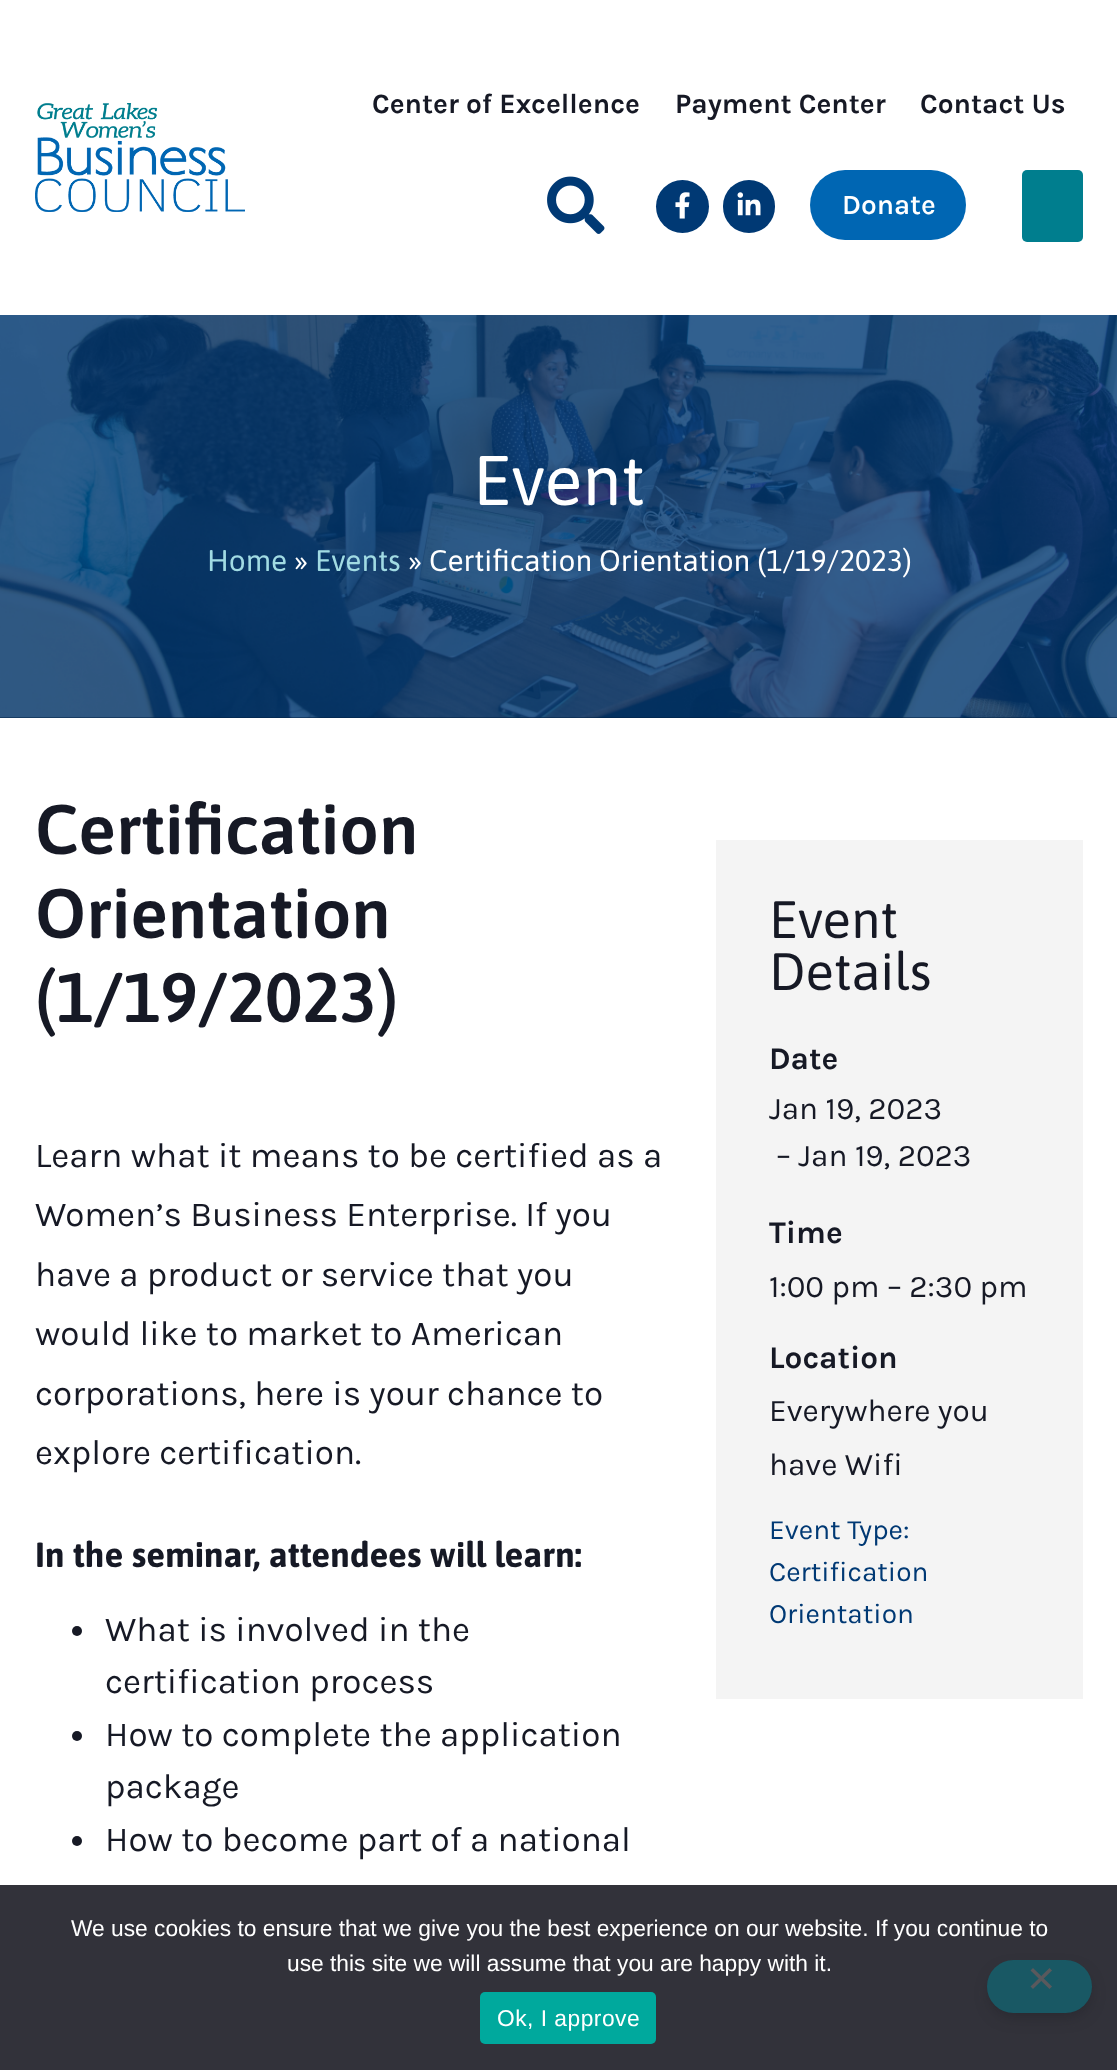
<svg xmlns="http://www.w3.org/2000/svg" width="1117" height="2070">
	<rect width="100%" height="100%" fill="#FFFFFF" />
	<image x="35" y="103" width="210" height="109" href="assets/img1.png" />
	<g font-family="Karla" font-size="28" font-weight="700" fill="#161925">
		<text x="372" y="113">Center of Excellence</text>
		<text x="675" y="113">Payment Center</text>
		<text x="920" y="113">Contact Us</text>
	</g>
	<image x="547" y="176" width="58" height="58" href="assets/img2.png" />
	<circle cx="682.5" cy="206.5" r="26.5" fill="#003974" />
	<image x="675" y="192" width="15" height="27" href="assets/img3.png" />
	<rect x="723" y="180" width="52" height="53" rx="26" fill="#003974" />
	<image x="737" y="192" width="24" height="24" href="assets/img4.png" />
	<rect x="810" y="170" width="156" height="70" rx="35" fill="#0066B3" />
	<text x="842" y="214" font-family="Karla" font-size="28" font-weight="600" fill="#FFFFFF">Donate</text>
	<rect x="1022" y="170" width="61" height="72" rx="5" fill="#007E8E" />
	<rect x="0" y="717" width="1117" height="1" fill="#012142" />
	<image x="0" y="315" width="1117" height="403" href="assets/img5.png" />
	<text x="473" y="505" font-family="Asap" font-size="70" fill="#FFFFFF">Event</text>
	<text x="207" y="571" font-family="Asap" font-size="29.75" fill="#A1DBE3">Home</text>
	<text x="294" y="571" font-family="Asap" font-size="29.75" fill="#FFFFFF">»</text>
	<text x="315" y="571" font-family="Asap" font-size="29.75" fill="#A1DBE3">Events</text>
	<text x="408" y="571" font-family="Asap" font-size="29.75" fill="#FFFFFF">» Certification Orientation (1/19/2023)</text>
	<g font-family="Asap" font-size="70" font-weight="600" fill="#161925">
		<text x="35" y="854">Certification</text>
		<text x="35" y="938">Orientation</text>
		<text x="35" y="1022">(1/19/2023)</text>
	</g>
	<g font-family="Karla" font-size="35" fill="#161925">
		<text x="35" y="1167">Learn what it means to be certified as a</text>
		<text x="35" y="1226">Women’s Business Enterprise. If you</text>
		<text x="35" y="1286">have a product or service that you</text>
		<text x="35" y="1345">would like to market to American</text>
		<text x="35" y="1405">corporations, here is your chance to</text>
		<text x="35" y="1464">explore certification.</text>
	</g>
	<text x="35" y="1567" font-family="Asap" font-size="35" font-weight="700" fill="#161925">In the seminar, attendees will learn:</text>
	<circle cx="77" cy="1631" r="5" fill="#161925" />
	<g font-family="Karla" font-size="35" fill="#161925">
		<text x="105" y="1641">What is involved in the</text>
		<text x="105" y="1693">certification process</text>
	</g>
	<circle cx="77" cy="1736" r="5" fill="#161925" />
	<g font-family="Karla" font-size="35" fill="#161925">
		<text x="105" y="1746">How to complete the application</text>
		<text x="105" y="1798">package</text>
	</g>
	<circle cx="77" cy="1841" r="5" fill="#161925" />
	<text x="105" y="1851" font-family="Karla" font-size="35" fill="#161925">How to become part of a national</text>
	<rect x="716" y="840" width="367" height="859" fill="#F4F4F4" />
	<g font-family="Asap" font-size="52.5" fill="#161925">
		<text x="769" y="938">Event</text>
		<text x="769" y="990">Details</text>
	</g>
	<text x="769" y="1069" font-family="Karla" font-size="31.5" font-weight="700" fill="#161925">Date</text>
	<g font-family="Karla" font-size="31.5" fill="#161925">
		<text x="769" y="1119">Jan 19, 2023</text>
		<text x="776" y="1166">– Jan 19, 2023</text>
	</g>
	<text x="769" y="1243" font-family="Karla" font-size="31.5" font-weight="700" fill="#161925">Time</text>
	<text x="769" y="1297" font-family="Karla" font-size="31.5" fill="#161925">1:00 pm – 2:30 pm</text>
	<text x="769" y="1368" font-family="Karla" font-size="31.5" font-weight="700" fill="#161925">Location</text>
	<g font-family="Karla" font-size="31.5" fill="#161925">
		<text x="769" y="1421">Everywhere you</text>
		<text x="769" y="1475">have Wifi</text>
	</g>
	<g font-family="Karla" font-size="28" fill="#003974">
		<text x="769" y="1539">Event Type:</text>
		<text x="769" y="1581">Certification</text>
		<text x="769" y="1623">Orientation</text>
	</g>
	<rect x="0" y="1885" width="1117" height="185" fill="#32323A" />
	<g font-family="Liberation Sans" font-size="22.75" fill="#FFFFFF">
		<text x="71" y="1936">We use cookies to ensure that we give you the best experience on our website. If you continue to</text>
		<text x="287" y="1971">use this site we will assume that you are happy with it.</text>
	</g>
	<rect x="480" y="1992" width="176" height="52" rx="5" fill="#00A99D" />
	<text x="497" y="2026" font-family="Liberation Sans" font-size="22.75" letter-spacing="0.5" fill="#FFFFFF">Ok, I approve</text>
	<rect x="991" y="1971" width="98" height="45" rx="22.5" fill="#19191D" fill-opacity="0.4" filter="blur(8px)" />
	<rect x="987" y="1960" width="105" height="53" rx="26.5" fill="#195864" />
	<path d="M1049.5 1968L1052 1970.5L1033 1989L1030.5 1986.5Z" fill="#59595D" />
	<path d="M1030.5 1970.5L1033 1968L1052 1986.5L1049.5 1989Z" fill="#59595D" />
</svg>
